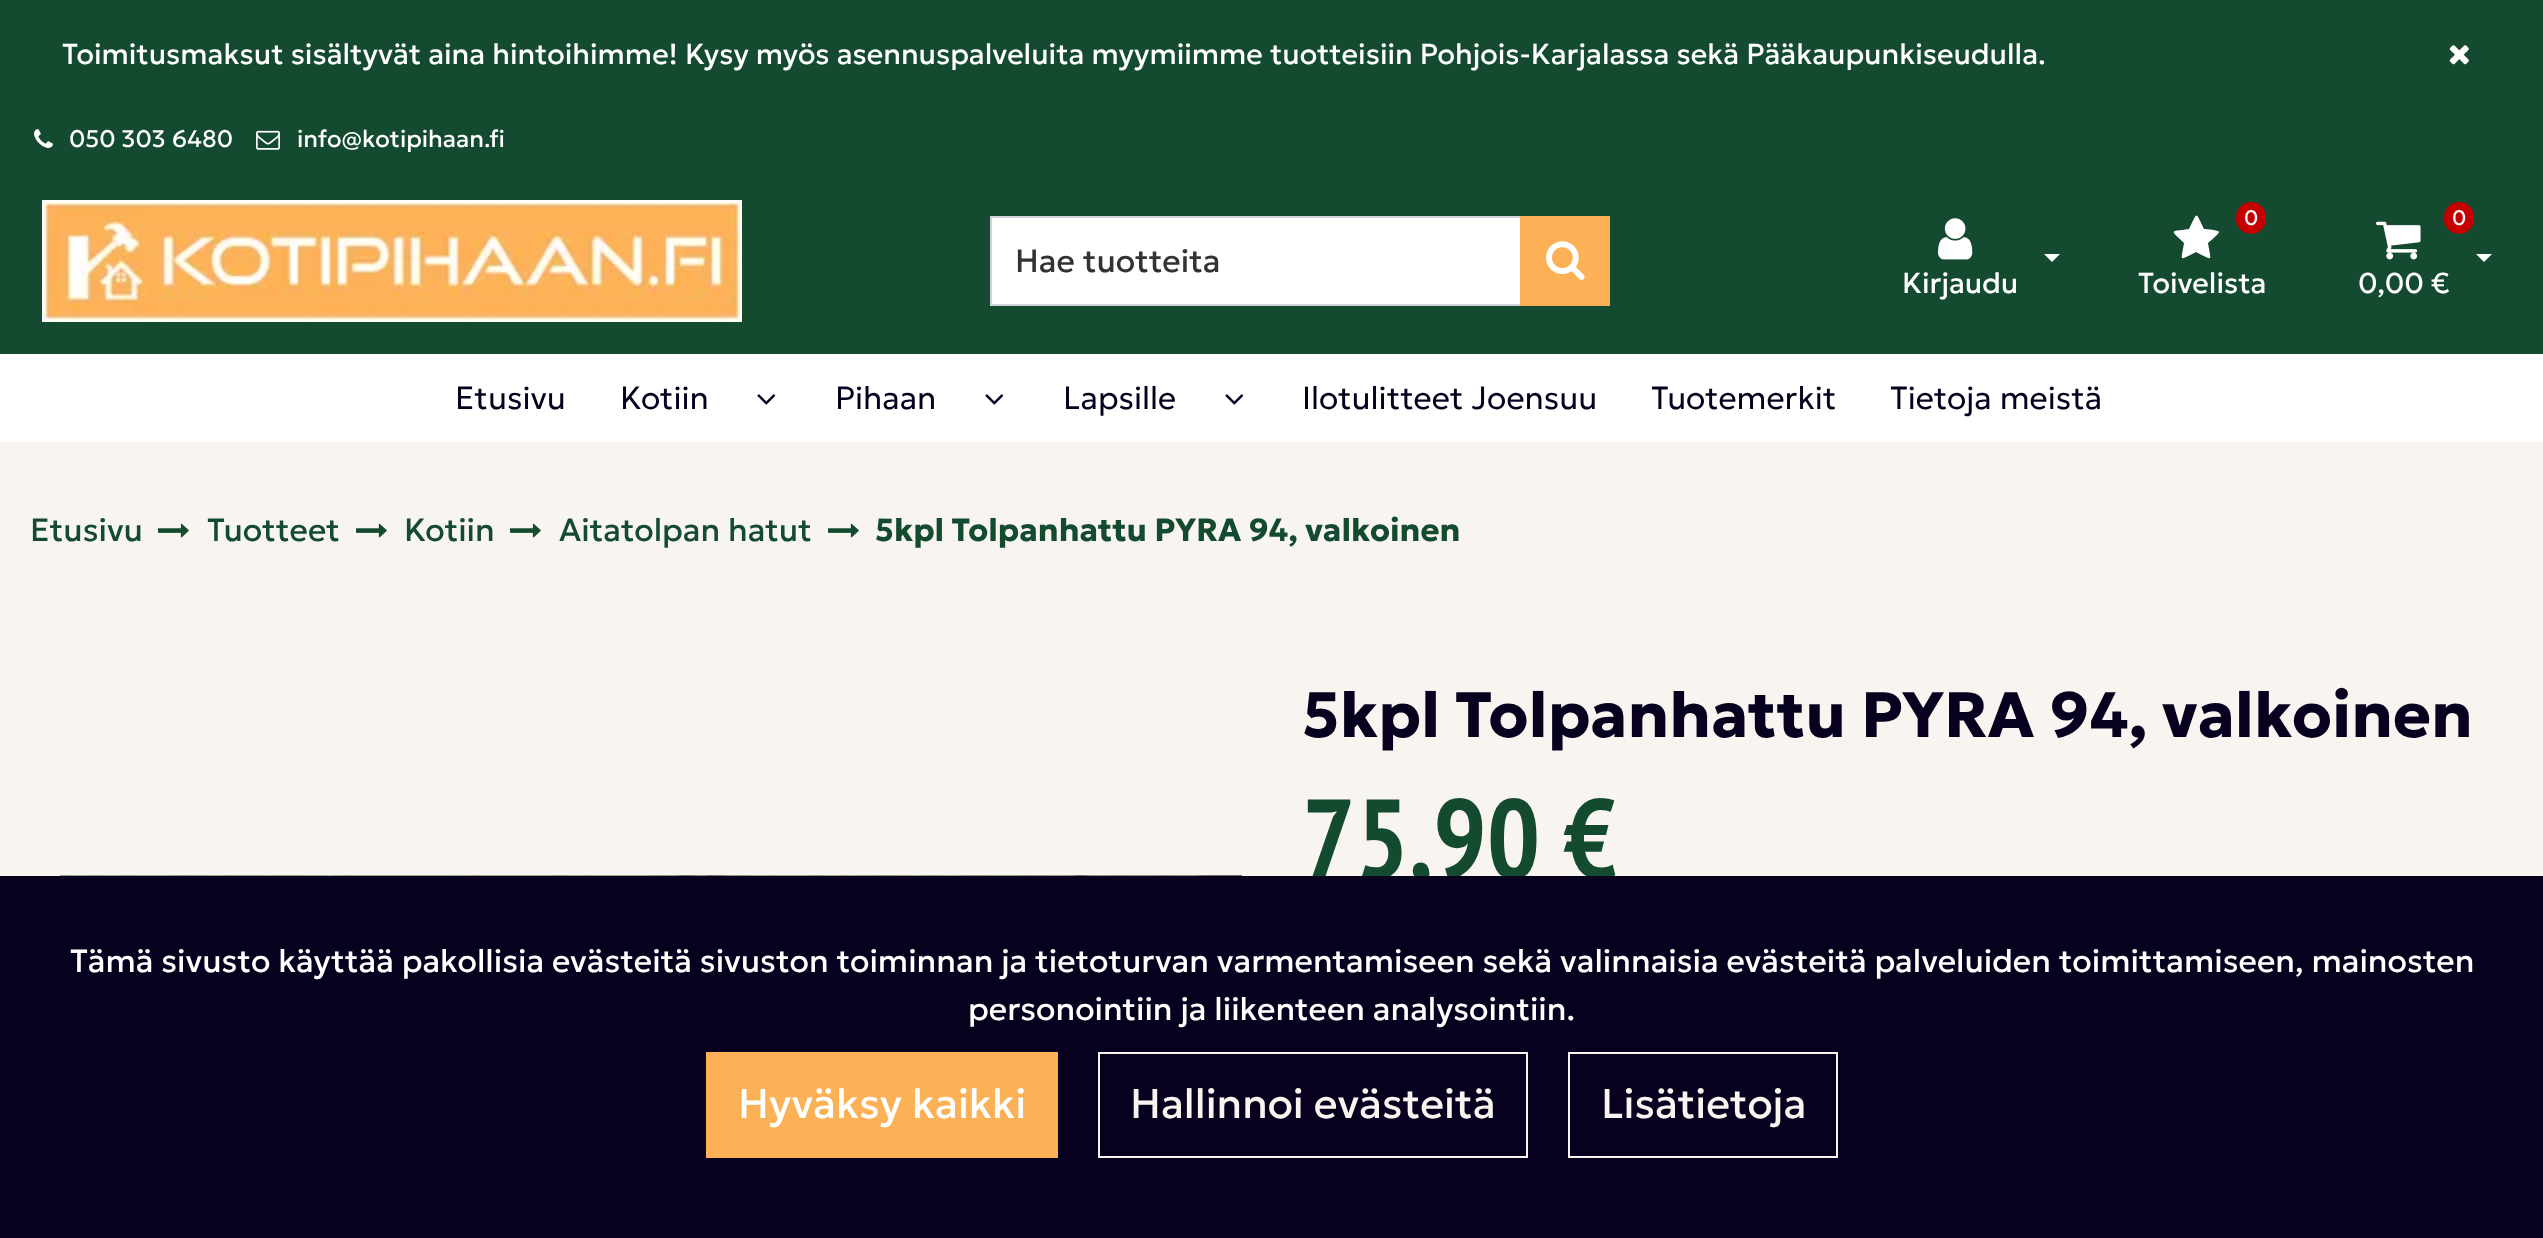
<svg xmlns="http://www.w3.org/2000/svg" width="2543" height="1238">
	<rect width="100%" height="100%" fill="#F8F5F0" />
	<rect x="0" y="0" width="2543" height="112" fill="#144A30" />
	<g font-family="Geologica" font-size="28.8" fill="#FFFFFF">
		<text x="62" y="64">Toimitusmaksut sisältyvät aina hintoihimme!</text>
		<text x="685" y="64">Kysy myös asennuspalveluita myymiimme tuotteisiin Pohjois-Karjalassa sekä Pääkaupunkiseudulla.</text>
	</g>
	<image x="2449" y="45" width="20" height="20" href="assets/img1.png" />
	<rect x="0" y="112" width="2543" height="242" fill="#144A30" />
	<image x="34" y="129" width="19" height="19" href="assets/img2.png" />
	<text x="69" y="147" font-family="Geologica" font-size="24" fill="#FFFFFF">050 303 6480</text>
	<image x="256" y="130" width="24" height="20" href="assets/img3.png" />
	<text x="297" y="147" font-family="Geologica" font-size="24" fill="#FFFFFF">info@kotipihaan.fi</text>
	<image x="42" y="200" width="700" height="122" href="assets/img4.png" />
	<rect x="991" y="217" width="530" height="88" fill="#FFFFFF" stroke="#CED4DA" stroke-width="2" />
	<text x="1015" y="272" font-family="Geologica" font-size="32" fill="#333333">Hae tuotteita</text>
	<rect x="1520" y="216" width="90" height="90" fill="#FCB156" />
	<image x="1546" y="241" width="39" height="39" href="assets/img5.png" />
	<path d="M2044 254H2060L2052 262Z" fill="#FFFFFF" />
	<image x="1938" y="218" width="35" height="42" href="assets/img6.png" />
	<text x="1902" y="293" font-family="Geologica" font-size="28.8" fill="#FFFFFF">Kirjaudu</text>
	<path d="M2219 232C2219 234 2210 241 2208 243C2211 262 2214 261 2196 252C2178 261 2181 262 2184 243C2170 229 2169 232 2189 229C2198 211 2195 211 2204 229C2206 229 2219 230 2219 232Z" fill="#FFFFFF" />
	<rect x="2236" y="202" width="30" height="32" rx="15" fill="#C40000" />
	<text x="2244" y="225" font-family="Geologica" font-size="21" fill="#FFFFFF">0</text>
	<text x="2138" y="293" font-family="Geologica" font-size="28.8" fill="#FFFFFF">Toivelista</text>
	<rect x="2444" y="202" width="30" height="32" rx="15" fill="#C40000" />
	<text x="2452" y="225" font-family="Geologica" font-size="21" fill="#FFFFFF">0</text>
	<image x="2376" y="221" width="45" height="39" href="assets/img7.png" />
	<text x="2358" y="293" font-family="Geologica" font-size="28.8" fill="#FFFFFF">0,00 €</text>
	<path d="M2476 254H2492L2484 262Z" fill="#FFFFFF" />
	<rect x="0" y="354" width="2543" height="88" fill="#FFFFFF" />
	<g font-family="Geologica" font-size="32" font-weight="300" fill="#07001E">
		<text x="455" y="409">Etusivu</text>
		<text x="620" y="409">Kotiin</text>
	</g>
	<image x="757" y="394" width="19" height="11" href="assets/img8.png" />
	<text x="835" y="409" font-family="Geologica" font-size="32" font-weight="300" fill="#07001E">Pihaan</text>
	<image x="985" y="394" width="19" height="11" href="assets/img8.png" />
	<text x="1063" y="409" font-family="Geologica" font-size="32" font-weight="300" fill="#07001E">Lapsille</text>
	<image x="1225" y="394" width="19" height="11" href="assets/img8.png" />
	<g font-family="Geologica" font-size="32" font-weight="300" fill="#07001E">
		<text x="1302" y="409">Ilotulitteet Joensuu</text>
		<text x="1651" y="409">Tuotemerkit</text>
		<text x="1890" y="409">Tietoja meistä</text>
	</g>
	<text x="30" y="541" font-family="Geologica" font-size="32" fill="#144A30">Etusivu</text>
	<image x="158" y="523" width="31" height="15" href="assets/img9.png" />
	<text x="207" y="541" font-family="Geologica" font-size="32" fill="#144A30">Tuotteet</text>
	<image x="356" y="523" width="31" height="15" href="assets/img9.png" />
	<text x="404" y="541" font-family="Geologica" font-size="32" fill="#144A30">Kotiin</text>
	<image x="510" y="523" width="31" height="15" href="assets/img9.png" />
	<text x="559" y="541" font-family="Geologica" font-size="32" fill="#144A30">Aitatolpan hatut</text>
	<image x="828" y="523" width="31" height="15" href="assets/img9.png" />
	<text x="875" y="541" font-family="Geologica" font-size="32" font-weight="700" fill="#144A30">5kpl Tolpanhattu PYRA 94, valkoinen</text>
	<image x="60" y="875" width="1182" height="1" href="assets/img10.png" />
	<text x="1302" y="737" font-family="Geologica" font-size="64" font-weight="700" fill="#07001E">5kpl Tolpanhattu PYRA 94, valkoinen</text>
	<text x="1302" y="878" font-family="PT Sans Narrow" font-size="112" font-weight="700" fill="#144A30">75,90 €</text>
	<rect x="0" y="876" width="2543" height="362" fill="#07001E" />
	<g font-family="Geologica" font-size="32" fill="#FFFFFF">
		<text x="70" y="972">Tämä sivusto käyttää pakollisia evästeitä sivuston toiminnan ja tietoturvan varmentamiseen sekä valinnaisia evästeitä palveluiden toimittamiseen, mainosten</text>
		<text x="968" y="1020">personointiin ja liikenteen analysointiin.</text>
	</g>
	<rect x="706" y="1052" width="352" height="106" fill="#FCB156" />
	<text x="738" y="1118" font-family="Geologica" font-size="41.5" fill="#FFFFFF">Hyväksy kaikki</text>
	<rect x="1099" y="1053" width="428" height="104" fill="none" stroke="#F8F5F0" stroke-width="2" />
	<text x="1130" y="1118" font-family="Geologica" font-size="41.5" fill="#F8F5F0">Hallinnoi evästeitä</text>
	<rect x="1569" y="1053" width="268" height="104" fill="none" stroke="#F8F5F0" stroke-width="2" />
	<text x="1601" y="1118" font-family="Geologica" font-size="41.5" fill="#F8F5F0">Lisätietoja</text>
</svg>
